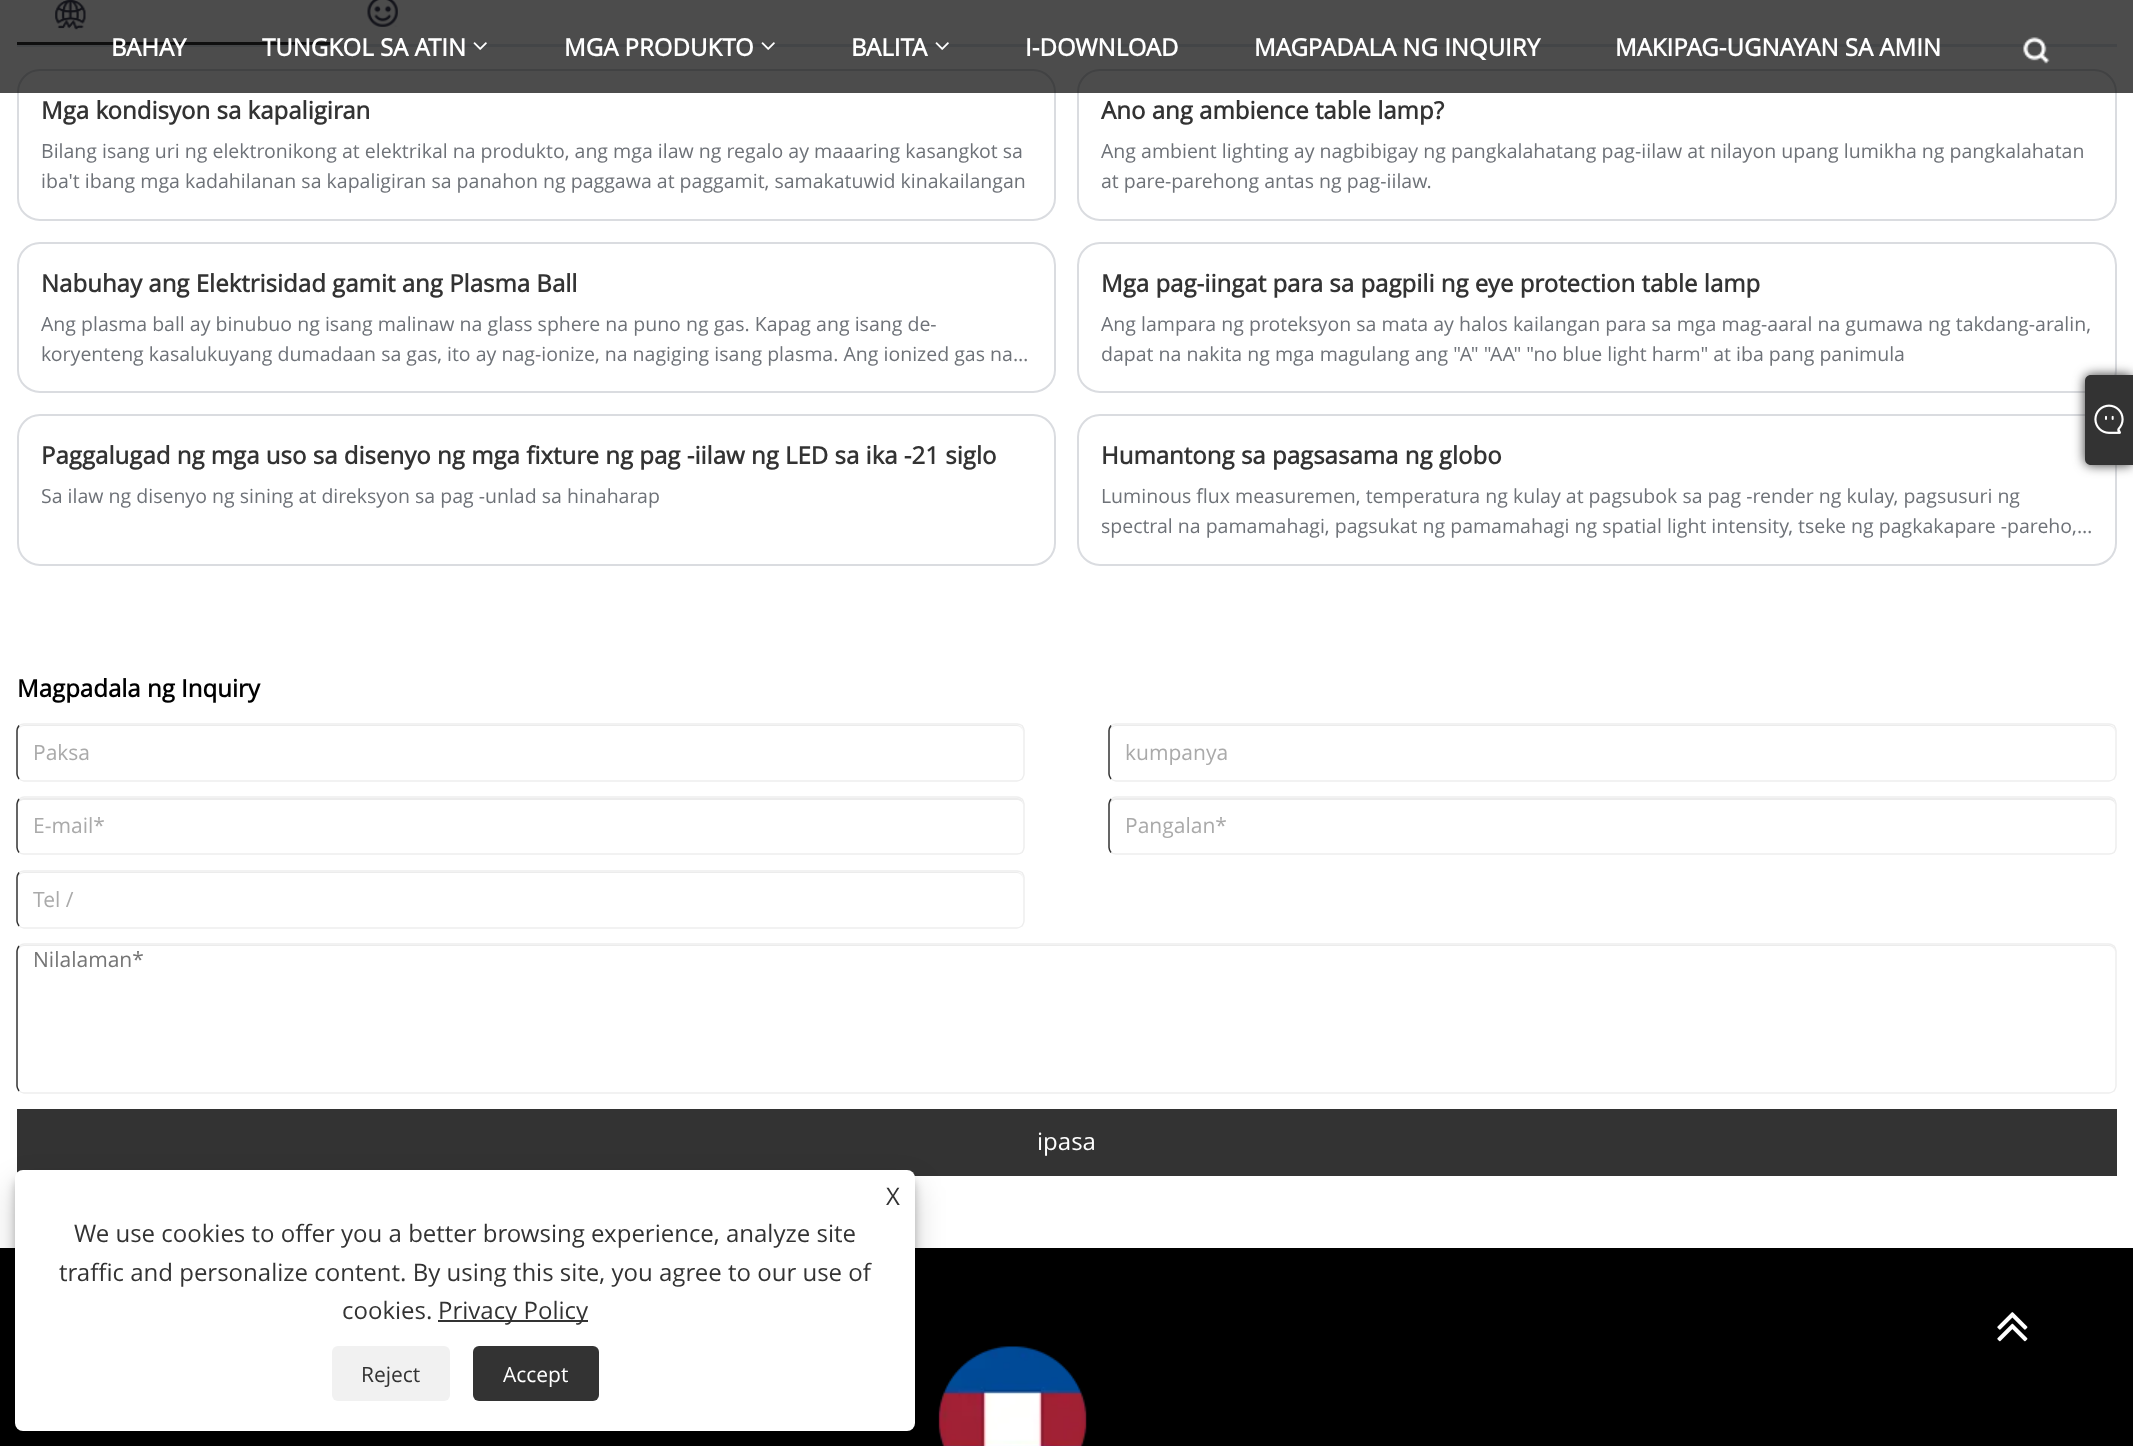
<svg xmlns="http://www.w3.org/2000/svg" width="2133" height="1446">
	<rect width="100%" height="100%" fill="#FFFFFF" />
	<rect x="17" y="44" width="2100" height="3" fill="#E0E6ED" />
	<image x="55" y="0" width="31" height="30" href="assets/img3.png" />
	<rect x="17" y="42" width="313" height="3" fill="#333333" />
	<image x="367" y="0" width="31" height="27" href="assets/img4.png" />
	<rect x="18" y="70" width="1037" height="150" rx="22" fill="none" stroke="#DADCE0" stroke-width="2" />
	<rect x="1078" y="70" width="1038" height="150" rx="22" fill="none" stroke="#DADCE0" stroke-width="2" />
	<rect x="0" y="0" width="2133" height="93" fill="#000000" fill-opacity="0.7" />
	<g font-family="Open Sans" font-size="24" font-weight="700" fill="#FFFFFF">
		<text x="111" y="56">BAHAY</text>
		<text x="262" y="56">TUNGKOL SA ATIN</text>
	</g>
	<image x="473" y="42" width="14" height="8" href="assets/img1.png" />
	<text x="564" y="56" font-family="Open Sans" font-size="24" font-weight="700" fill="#FFFFFF">MGA PRODUKTO</text>
	<image x="761" y="42" width="14" height="8" href="assets/img1.png" />
	<text x="851" y="56" font-family="Open Sans" font-size="24" font-weight="700" fill="#FFFFFF">BALITA</text>
	<image x="935" y="42" width="14" height="8" href="assets/img1.png" />
	<g font-family="Open Sans" font-size="24" font-weight="700" fill="#FFFFFF">
		<text x="1025" y="56">I-DOWNLOAD</text>
		<text x="1254" y="56">MAGPADALA NG INQUIRY</text>
		<text x="1615" y="56">MAKIPAG-UGNAYAN SA AMIN</text>
	</g>
	<image x="2023" y="37" width="27" height="27" href="assets/img2.png" />
	<text x="41" y="119" font-family="Open Sans" font-size="24" font-weight="700" fill="#333333">Mga kondisyon sa kapaligiran</text>
	<g font-family="Open Sans" font-size="19.5" fill="#6E7278">
		<text x="41" y="158">Bilang isang uri ng elektronikong at elektrikal na produkto, ang mga ilaw ng regalo ay maaaring kasangkot sa</text>
		<text x="41" y="188">iba't ibang mga kadahilanan sa kapaligiran sa panahon ng paggawa at paggamit, samakatuwid kinakailangan</text>
	</g>
	<text x="1101" y="119" font-family="Open Sans" font-size="24" font-weight="700" fill="#333333">Ano ang ambience table lamp?</text>
	<g font-family="Open Sans" font-size="19.5" fill="#6E7278">
		<text x="1101" y="158">Ang ambient lighting ay nagbibigay ng pangkalahatang pag-iilaw at nilayon upang lumikha ng pangkalahatan</text>
		<text x="1101" y="188">at pare-parehong antas ng pag-iilaw.</text>
	</g>
	<rect x="18" y="243" width="1037" height="149" rx="22" fill="none" stroke="#DADCE0" stroke-width="2" />
	<text x="41" y="292" font-family="Open Sans" font-size="24" font-weight="700" fill="#333333">Nabuhay ang Elektrisidad gamit ang Plasma Ball</text>
	<g font-family="Open Sans" font-size="19.5" fill="#6E7278">
		<text x="41" y="331">Ang plasma ball ay binubuo ng isang malinaw na glass sphere na puno ng gas. Kapag ang isang de-</text>
		<text x="41" y="361">koryenteng kasalukuyang dumadaan sa gas, ito ay nag-ionize, na nagiging isang plasma. Ang ionized gas na…</text>
	</g>
	<rect x="1078" y="243" width="1038" height="149" rx="22" fill="none" stroke="#DADCE0" stroke-width="2" />
	<text x="1101" y="292" font-family="Open Sans" font-size="24" font-weight="700" fill="#333333">Mga pag-iingat para sa pagpili ng eye protection table lamp</text>
	<g font-family="Open Sans" font-size="19.5" fill="#6E7278">
		<text x="1101" y="331">Ang lampara ng proteksyon sa mata ay halos kailangan para sa mga mag-aaral na gumawa ng takdang-aralin,</text>
		<text x="1101" y="361">dapat na nakita ng mga magulang ang "A" "AA" "no blue light harm" at iba pang panimula</text>
	</g>
	<rect x="18" y="415" width="1037" height="150" rx="22" fill="none" stroke="#DADCE0" stroke-width="2" />
	<text x="41" y="464" font-family="Open Sans" font-size="24" font-weight="700" fill="#333333">Paggalugad ng mga uso sa disenyo ng mga fixture ng pag -iilaw ng LED sa ika -21 siglo</text>
	<text x="41" y="503" font-family="Open Sans" font-size="19.5" fill="#6E7278">Sa ilaw ng disenyo ng sining at direksyon sa pag -unlad sa hinaharap</text>
	<rect x="1078" y="415" width="1038" height="150" rx="22" fill="none" stroke="#DADCE0" stroke-width="2" />
	<text x="1101" y="464" font-family="Open Sans" font-size="24" font-weight="700" fill="#333333">Humantong sa pagsasama ng globo</text>
	<g font-family="Open Sans" font-size="19.5" fill="#6E7278">
		<text x="1101" y="503">Luminous flux measuremen, temperatura ng kulay at pagsubok sa pag -render ng kulay, pagsusuri ng</text>
		<text x="1101" y="533">spectral na pamamahagi, pagsukat ng pamamahagi ng spatial light intensity, tseke ng pagkakapare -pareho,…</text>
	</g>
	<text x="17" y="697" font-family="Open Sans" font-size="24" font-weight="700" fill="#000000">Magpadala ng Inquiry</text>
	<path d="M24 726H1017C1020 726 1023 729 1023 732V731C1023 728 1020 725 1017 725H24C21 725 18 728 18 731V732C18 729 21 726 24 726Z" fill="#ECECEC" />
	<path d="M19 725.5C20.5 724.5 22 724 24 724H1017C1019 724 1020.5 724.5 1022 725.5C1023 727 1024 728.5 1024 730.5V774C1024 776 1023 777.5 1022 779C1020.5 780 1019 781 1017 781H24C22 781 20.5 780 19 779" fill="none" stroke="#EEEEEE" stroke-width="1.5" />
	<path d="M19 779C18 777.5 17 776 17 774V730.5C17 728.5 18 727 19 725.5" fill="none" stroke="#333333" stroke-width="1.5" />
	<text x="33" y="760" font-family="Open Sans" font-size="21" fill="#AAAAAA">Paksa</text>
	<path d="M1116 726H2109C2112 726 2115 729 2115 732V731C2115 728 2112 725 2109 725H1116C1113 725 1110 728 1110 731V732C1110 729 1113 726 1116 726Z" fill="#ECECEC" />
	<path d="M1111 725.5C1112.5 724.5 1114 724 1116 724H2109C2111 724 2112.5 724.5 2114 725.5C2115 727 2116 728.5 2116 730.5V774C2116 776 2115 777.5 2114 779C2112.5 780 2111 781 2109 781H1116C1114 781 1112.5 780 1111 779" fill="none" stroke="#EEEEEE" stroke-width="1.5" />
	<path d="M1111 779C1110 777.5 1109 776 1109 774V730.5C1109 728.5 1110 727 1111 725.5" fill="none" stroke="#333333" stroke-width="1.5" />
	<text x="1125" y="760" font-family="Open Sans" font-size="21" fill="#AAAAAA">kumpanya</text>
	<path d="M24 800H1017C1020 800 1023 802 1023 806C1023 802 1022 798 1017 798H24C19 798 18 802 18 806C18 802 21 800 24 800Z" fill="#ECECEC" />
	<path d="M19 799C20.5 798 22 797 24 797H1017C1019 797 1020.5 798 1022 799C1023 800.5 1024 802 1024 804V847.5C1024 849.5 1023 851 1022 852.5C1020.5 853.5 1019 854 1017 854H24C22 854 20.5 853.5 19 852.5" fill="none" stroke="#EEEEEE" stroke-width="1.5" />
	<path d="M19 852.5C18 851 17 849.5 17 847.5V804C17 802 18 800.5 19 799" fill="none" stroke="#333333" stroke-width="1.5" />
	<text x="33" y="833" font-family="Open Sans" font-size="21" fill="#AAAAAA">E-mail*</text>
	<path d="M1116 800H2109C2112 800 2115 802 2115 806C2115 802 2114 798 2109 798H1116C1111 798 1110 802 1110 806C1110 802 1113 800 1116 800Z" fill="#ECECEC" />
	<path d="M1111 799C1112.5 798 1114 797 1116 797H2109C2111 797 2112.5 798 2114 799C2115 800.5 2116 802 2116 804V847.5C2116 849.5 2115 851 2114 852.5C2112.5 853.5 2111 854 2109 854H1116C1114 854 1112.5 853.5 1111 852.5" fill="none" stroke="#EEEEEE" stroke-width="1.5" />
	<path d="M1111 852.5C1110 851 1109 849.5 1109 847.5V804C1109 802 1110 800.5 1111 799" fill="none" stroke="#333333" stroke-width="1.5" />
	<text x="1125" y="833" font-family="Open Sans" font-size="21" fill="#AAAAAA">Pangalan*</text>
	<path d="M24 873H1017C1020 873 1023 876 1023 879V878C1023 875 1020 872 1017 872H24C21 872 18 875 18 878V879C18 876 21 873 24 873Z" fill="#ECECEC" />
	<path d="M19 872.5C20.5 871.5 22 871 24 871H1017C1019 871 1020.5 871.5 1022 872.5C1023 874 1024 875.5 1024 877.5V921C1024 923 1023 924.5 1022 926C1020.5 927 1019 928 1017 928H24C22 928 20.5 927 19 926" fill="none" stroke="#EEEEEE" stroke-width="1.5" />
	<path d="M19 926C18 924.5 17 923 17 921V877.5C17 875.5 18 874 19 872.5" fill="none" stroke="#333333" stroke-width="1.5" />
	<text x="33" y="907" font-family="Open Sans" font-size="21" fill="#AAAAAA">Tel /</text>
	<path d="M24 946H2109C2112 946 2115 949 2115 952C2115 948 2113 945 2109 945H24C20 945 18 948 18 952C18 949 21 946 24 946Z" fill="#ECECEC" />
	<path d="M19 946C20.5 945 22 944 24 944H2109C2111 944 2112.5 945 2114 946C2115 947.5 2116 949 2116 951V1086C2116 1088 2115 1089.5 2114 1091C2112.5 1092 2111 1093 2109 1093H24C22 1093 20.5 1092 19 1091" fill="none" stroke="#EEEEEE" stroke-width="1.5" />
	<path d="M19 1091C18 1089.5 17 1088 17 1086V951C17 949 18 947.5 19 946" fill="none" stroke="#333333" stroke-width="1.5" />
	<text x="33" y="967" font-family="Open Sans" font-size="21" fill="#757575">Nilalaman*</text>
	<rect x="17" y="1109" width="2100" height="67" fill="#333333" />
	<text x="1037" y="1150" font-family="Open Sans" font-size="24" fill="#FFFFFF">ipasa</text>
	<rect x="0" y="1248" width="2133" height="198" fill="#000000" />
	<image x="938" y="1346" width="149" height="100" href="assets/img5.png" />
	<rect x="2085" y="375" width="48" height="90" rx="6" fill="#333333" filter="blur(6px)" />
	<path d="M2091 375H2133V465H2091C2087.5 465 2085 462.5 2085 459V381C2085 377.5 2087.5 375 2091 375Z" fill="#333333" />
	<image x="2094" y="404" width="30" height="30" href="assets/img6.png" />
	<rect x="15" y="1179" width="900" height="261" rx="8" fill="#000000" fill-opacity="0.23" filter="blur(4.5px)" />
	<rect x="15" y="1185" width="900" height="261" rx="8" fill="#000000" fill-opacity="0.19" filter="blur(15px)" />
	<rect x="15" y="1170" width="900" height="261" rx="8" fill="#FFFFFF" />
	<g font-family="Open Sans" font-size="24" fill="#333333">
		<text x="886" y="1205">X</text>
		<text x="74" y="1242">We use cookies to offer you a better browsing experience, analyze site</text>
		<text x="59" y="1281">traffic and personalize content. By using this site, you agree to our use of</text>
		<text x="342" y="1319">cookies.</text>
	</g>
	<rect x="438" y="1320" width="150" height="2" fill="#333333" />
	<text x="438" y="1319" font-family="Open Sans" font-size="24" fill="#333333">Privacy Policy</text>
	<rect x="332" y="1346" width="118" height="55" rx="6" fill="#F1F1F1" />
	<text x="361" y="1382" font-family="Open Sans" font-size="21" fill="#333333">Reject</text>
	<rect x="473" y="1346" width="126" height="55" rx="6" fill="#333333" />
	<text x="503" y="1382" font-family="Open Sans" font-size="21" fill="#FFFFFF">Accept</text>
	<image x="1997" y="1312" width="31" height="30" href="assets/img7.png" />
</svg>
